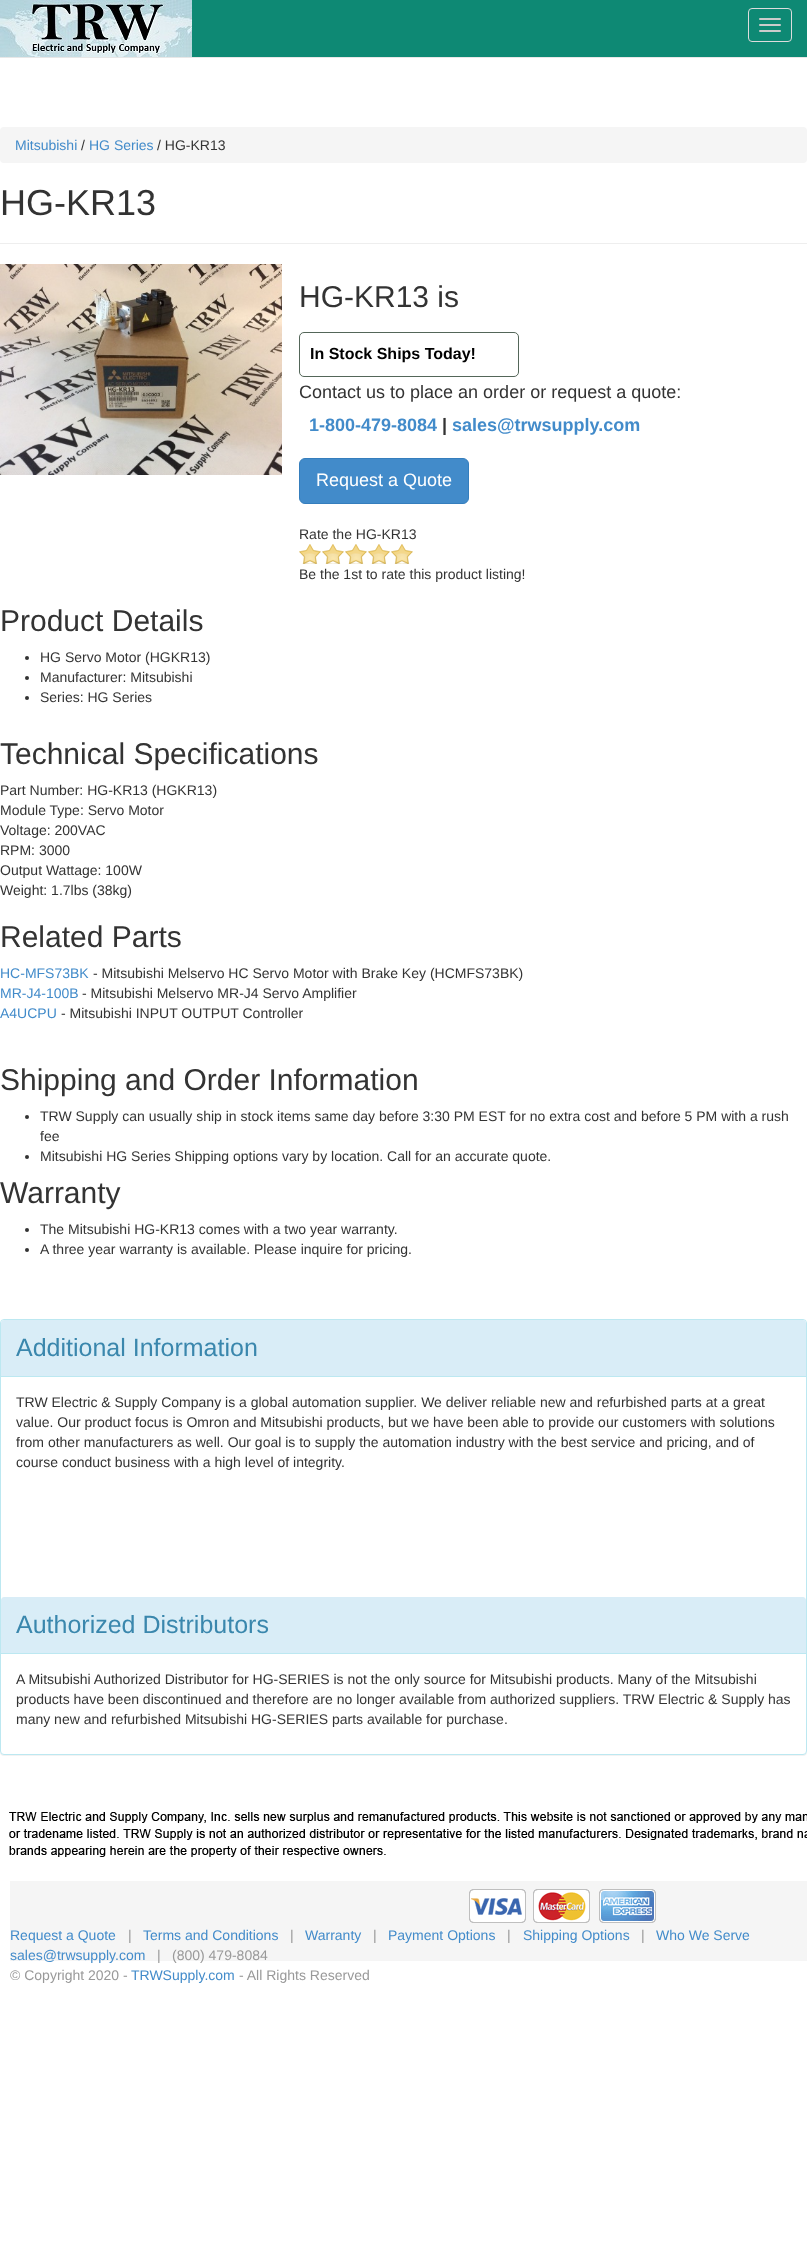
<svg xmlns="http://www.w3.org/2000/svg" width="807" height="2268">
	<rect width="100%" height="100%" fill="#FFFFFF" />
	<rect x="192" y="0" width="615" height="57" fill="#0E8974" />
	<rect x="0" y="57" width="807" height="1" fill="#E7E7E7" />
	<image x="0" y="0" width="192" height="57" href="assets/img1.png" />
	<rect x="748.5" y="8.5" width="43" height="33" rx="3.5" fill="none" stroke="#DDDDDD" />
	<rect x="759" y="18" width="22" height="2" rx="1" fill="#CCCCCC" />
	<rect x="759" y="24" width="22" height="2" rx="1" fill="#CCCCCC" />
	<rect x="759" y="30" width="22" height="2" rx="1" fill="#CCCCCC" />
	<rect x="0" y="127" width="807" height="36" rx="4" fill="#F5F5F5" />
	<text x="15" y="150" font-family="Liberation Sans" font-size="14" fill="#428BCA">Mitsubishi</text>
	<text x="81" y="150" font-family="Liberation Sans" font-size="14" fill="#333333">/</text>
	<text x="89" y="150" font-family="Liberation Sans" font-size="14" fill="#428BCA">HG Series</text>
	<text x="157" y="150" font-family="Liberation Sans" font-size="14" fill="#333333">/ HG-KR13</text>
	<text x="0" y="215" font-family="Liberation Sans" font-size="36" fill="#333333">HG-KR13</text>
	<rect x="0" y="243" width="807" height="1" fill="#EEEEEE" />
	<image x="0" y="264" width="282" height="211" href="assets/img2.png" />
	<text x="299" y="307" font-family="Liberation Sans" font-size="30" fill="#333333">HG-KR13 is</text>
	<rect x="299.5" y="332.5" width="219" height="44" rx="4.5" fill="none" stroke="#546659" />
	<text x="310" y="359" font-family="Liberation Sans" font-size="16" font-weight="700" fill="#000000">In Stock Ships Today!</text>
	<text x="299" y="398" font-family="Liberation Sans" font-size="18" fill="#333333">Contact us to place an order or request a quote:</text>
	<text x="309" y="431" font-family="Liberation Sans" font-size="18" font-weight="700" fill="#428BCA">1-800-479-8084</text>
	<text x="442" y="431" font-family="Liberation Sans" font-size="18" font-weight="700" fill="#333333">|</text>
	<text x="452" y="431" font-family="Liberation Sans" font-size="18" font-weight="700" fill="#428BCA">sales@trwsupply.com</text>
	<rect x="299.5" y="458.5" width="169" height="45" rx="5.5" fill="#428BCA" stroke="#357EBD" />
	<text x="316" y="486" font-family="Liberation Sans" font-size="18" fill="#FFFFFF">Request a Quote</text>
	<text x="299" y="539" font-family="Liberation Sans" font-size="14" fill="#333333">Rate the HG-KR13</text>
	<rect x="299" y="544" width="114" height="20" fill="#F4C239" />
	<image x="299" y="544" width="115" height="20" href="assets/img3.png" />
	<text x="299" y="579" font-family="Liberation Sans" font-size="14" fill="#333333">Be the 1st to rate this product listing!</text>
	<text x="0" y="631" font-family="Liberation Sans" font-size="30" fill="#333333">Product Details</text>
	<circle cx="27" cy="658" r="2" fill="#333333" />
	<text x="40" y="662" font-family="Liberation Sans" font-size="14" fill="#333333">HG Servo Motor (HGKR13)</text>
	<circle cx="27" cy="678" r="2" fill="#333333" />
	<text x="40" y="682" font-family="Liberation Sans" font-size="14" fill="#333333">Manufacturer: Mitsubishi</text>
	<circle cx="27" cy="698" r="2" fill="#333333" />
	<text x="40" y="702" font-family="Liberation Sans" font-size="14" fill="#333333">Series: HG Series</text>
	<text x="0" y="764" font-family="Liberation Sans" font-size="30" fill="#333333">Technical Specifications</text>
	<g font-family="Liberation Sans" font-size="14" fill="#333333">
		<text x="0" y="795">Part Number: HG-KR13 (HGKR13)</text>
		<text x="0" y="815">Module Type: Servo Motor</text>
		<text x="0" y="835">Voltage: 200VAC</text>
		<text x="0" y="855">RPM: 3000</text>
		<text x="0" y="875">Output Wattage: 100W</text>
		<text x="0" y="895">Weight: 1.7lbs (38kg)</text>
	</g>
	<text x="0" y="947" font-family="Liberation Sans" font-size="30" fill="#333333">Related Parts</text>
	<text x="0" y="978" font-family="Liberation Sans" font-size="14" fill="#428BCA">HC-MFS73BK</text>
	<text x="93" y="978" font-family="Liberation Sans" font-size="14" fill="#333333">- Mitsubishi Melservo HC Servo Motor with Brake Key (HCMFS73BK)</text>
	<text x="0" y="998" font-family="Liberation Sans" font-size="14" fill="#428BCA">MR-J4-100B</text>
	<text x="82" y="998" font-family="Liberation Sans" font-size="14" fill="#333333">- Mitsubishi Melservo MR-J4 Servo Amplifier</text>
	<text x="0" y="1018" font-family="Liberation Sans" font-size="14" fill="#428BCA">A4UCPU</text>
	<text x="61" y="1018" font-family="Liberation Sans" font-size="14" fill="#333333">- Mitsubishi INPUT OUTPUT Controller</text>
	<text x="0" y="1090" font-family="Liberation Sans" font-size="30" fill="#333333">Shipping and Order Information</text>
	<circle cx="27" cy="1117" r="2" fill="#333333" />
	<g font-family="Liberation Sans" font-size="14" fill="#333333">
		<text x="40" y="1121">TRW Supply can usually ship in stock items same day before 3:30 PM EST for no extra cost and before 5 PM with a rush</text>
		<text x="40" y="1141">fee</text>
	</g>
	<circle cx="27" cy="1157" r="2" fill="#333333" />
	<text x="40" y="1161" font-family="Liberation Sans" font-size="14" fill="#333333">Mitsubishi HG Series Shipping options vary by location. Call for an accurate quote.</text>
	<text x="0" y="1203" font-family="Liberation Sans" font-size="30" fill="#333333">Warranty</text>
	<circle cx="27" cy="1230" r="2" fill="#333333" />
	<text x="40" y="1234" font-family="Liberation Sans" font-size="14" fill="#333333">The Mitsubishi HG-KR13 comes with a two year warranty.</text>
	<circle cx="27" cy="1250" r="2" fill="#333333" />
	<text x="40" y="1254" font-family="Liberation Sans" font-size="14" fill="#333333">A three year warranty is available. Please inquire for pricing.</text>
	<rect x="0" y="1320" width="807" height="436" rx="4" fill="#000000" fill-opacity="0.05" filter="blur(0.5px)" />
	<rect x="0.5" y="1319.5" width="806" height="435" rx="3.5" fill="#FFFFFF" stroke="#BCE8F1" />
	<path d="M4 1320H803C804.5 1320 806 1321.5 806 1323V1377H1V1323C1 1321.5 2.5 1320 4 1320Z" fill="#D9EDF7" />
	<rect x="1" y="1376" width="805" height="1" fill="#BCE8F1" />
	<text x="16" y="1356" font-family="Liberation Sans" font-size="25" fill="#3A87AD">Additional Information</text>
	<g font-family="Liberation Sans" font-size="14" fill="#333333">
		<text x="16" y="1407">TRW Electric &amp; Supply Company is a global automation supplier. We deliver reliable new and refurbished parts at a great</text>
		<text x="16" y="1427">value. Our product focus is Omron and Mitsubishi products, but we have been able to provide our customers with solutions</text>
		<text x="16" y="1447">from other manufacturers as well. Our goal is to supply the automation industry with the best service and pricing, and of</text>
		<text x="16" y="1467">course conduct business with a high level of integrity.</text>
	</g>
	<path d="M4 1597H803C804.5 1597 806 1598.5 806 1600V1654H1V1600C1 1598.5 2.5 1597 4 1597Z" fill="#D9EDF7" />
	<rect x="1" y="1653" width="805" height="1" fill="#BCE8F1" />
	<text x="16" y="1633" font-family="Liberation Sans" font-size="25" fill="#3A87AD">Authorized Distributors</text>
	<g font-family="Liberation Sans" font-size="14" fill="#333333">
		<text x="16" y="1684">A Mitsubishi Authorized Distributor for HG-SERIES is not the only source for Mitsubishi products. Many of the Mitsubishi</text>
		<text x="16" y="1704">products have been discontinued and therefore are no longer available from authorized suppliers. TRW Electric &amp; Supply has</text>
		<text x="16" y="1724">many new and refurbished Mitsubishi HG-SERIES parts available for purchase.</text>
	</g>
	<image x="9" y="1812" width="798" height="45" href="assets/img4.png" />
	<rect x="10" y="1881" width="797" height="80" fill="#F5F5F5" />
	<image x="469" y="1889" width="187" height="34" href="assets/img5.png" />
	<text x="10" y="1940" font-family="Liberation Sans" font-size="14" fill="#428BCA">Request a Quote</text>
	<text x="128" y="1940" font-family="Liberation Sans" font-size="14" fill="#999999">|</text>
	<text x="143" y="1940" font-family="Liberation Sans" font-size="14" fill="#428BCA">Terms and Conditions</text>
	<text x="290" y="1940" font-family="Liberation Sans" font-size="14" fill="#999999">|</text>
	<text x="305" y="1940" font-family="Liberation Sans" font-size="14" fill="#428BCA">Warranty</text>
	<text x="373" y="1940" font-family="Liberation Sans" font-size="14" fill="#999999">|</text>
	<text x="388" y="1940" font-family="Liberation Sans" font-size="14" fill="#428BCA">Payment Options</text>
	<text x="507" y="1940" font-family="Liberation Sans" font-size="14" fill="#999999">|</text>
	<text x="523" y="1940" font-family="Liberation Sans" font-size="14" fill="#428BCA">Shipping Options</text>
	<text x="641" y="1940" font-family="Liberation Sans" font-size="14" fill="#999999">|</text>
	<g font-family="Liberation Sans" font-size="14" fill="#428BCA">
		<text x="656" y="1940">Who We Serve</text>
		<text x="10" y="1960">sales@trwsupply.com</text>
	</g>
	<g font-family="Liberation Sans" font-size="14" fill="#999999">
		<text x="157" y="1960">|</text>
		<text x="172" y="1960">(800) 479-8084</text>
		<text x="10" y="1980">© Copyright 2020 -</text>
	</g>
	<text x="131" y="1980" font-family="Liberation Sans" font-size="14" fill="#428BCA">TRWSupply.com</text>
	<text x="239" y="1980" font-family="Liberation Sans" font-size="14" fill="#999999">- All Rights Reserved</text>
</svg>
